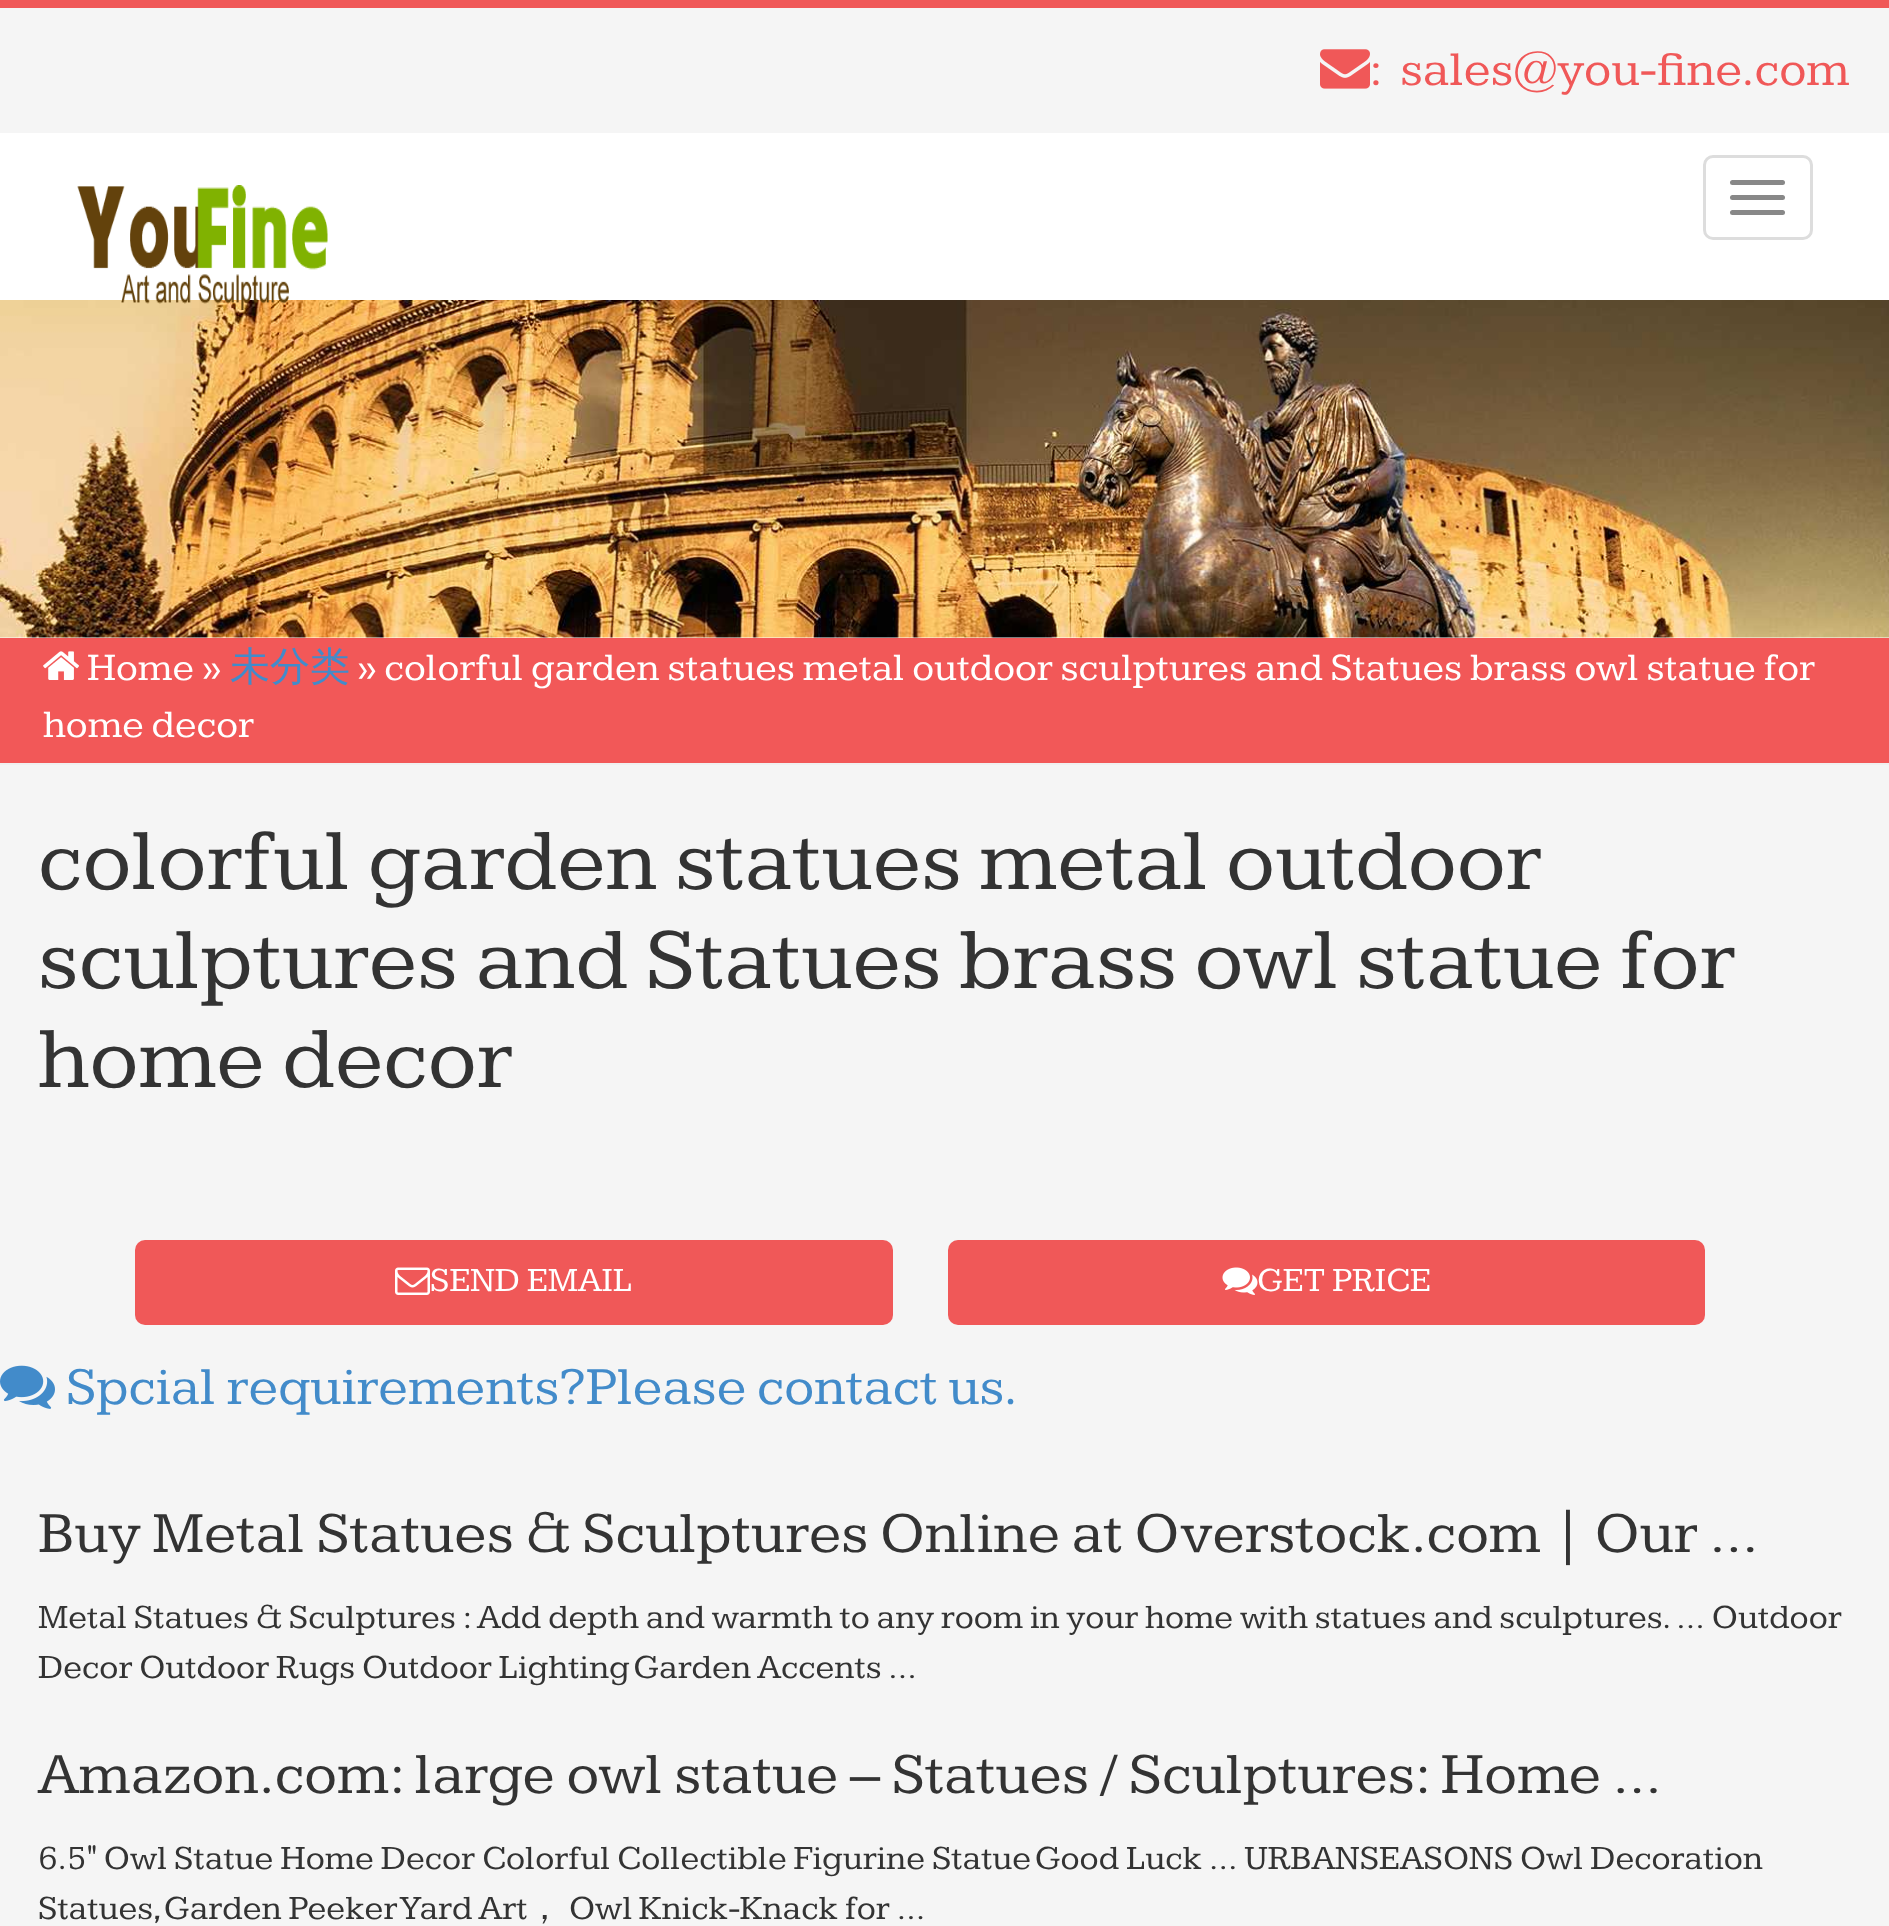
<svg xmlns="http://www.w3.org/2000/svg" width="1889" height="1926">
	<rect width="100%" height="100%" fill="#FFFFFF" />
	<rect x="0" y="8" width="1889" height="125" fill="#F5F5F5" />
	<rect x="0" y="0" width="1889" height="8" fill="#F05858" />
	<image x="1320" y="49" width="50" height="40" href="assets/img1.png" />
	<text x="1369" y="85" font-family="Kameron" font-size="50" fill="#F05858" xml:space="preserve">:  sales@you-fine.com</text>
	<image x="0" y="300" width="1889" height="338" href="assets/img3.png" />
	<image x="77" y="185" width="251" height="125" href="assets/img2.png" />
	<rect x="1704.5" y="156.5" width="107" height="82" rx="8.5" fill="none" stroke="#DDDDDD" stroke-width="3" />
	<rect x="1730" y="180" width="55" height="5" rx="2.5" fill="#888888" />
	<rect x="1730" y="195" width="55" height="5" rx="2.5" fill="#888888" />
	<rect x="1730" y="210" width="55" height="5" rx="2.5" fill="#888888" />
	<rect x="0" y="638" width="1889" height="125" fill="#F25858" />
	<rect x="0" y="763" width="1889" height="2" fill="#F0F0F0" />
	<image x="43" y="651" width="36" height="29" href="assets/img4.png" />
	<text x="87" y="680" font-family="Kameron" font-size="40" fill="#FFFFFF">Home »</text>
	<text x="230" y="680" font-family="WenQuanYi Zen Hei" font-size="40" font-weight="500" fill="#428BCA">未分类</text>
	<g font-family="Kameron" font-size="40" fill="#FFFFFF">
		<text x="357" y="680">» colorful garden statues metal outdoor sculptures and Statues brass owl statue for</text>
		<text x="43" y="737">home decor</text>
	</g>
	<rect x="0" y="765" width="1889" height="1161" fill="#F5F5F5" />
	<g font-family="Kameron" font-size="90" fill="#333333">
		<text x="38" y="889">colorful garden statues metal outdoor</text>
		<text x="38" y="988">sculptures and Statues brass owl statue for</text>
		<text x="38" y="1087">home decor</text>
	</g>
	<rect x="135" y="1240" width="758" height="85" rx="10" fill="#F05858" />
	<image x="395" y="1267" width="35" height="28" href="assets/img5.png" />
	<text x="430" y="1291" font-family="Kameron" font-size="35" fill="#FFFFFF">SEND EMAIL</text>
	<rect x="948" y="1240" width="757" height="85" rx="10" fill="#F05858" />
	<image x="1222" y="1267" width="36" height="28" href="assets/img6.png" />
	<text x="1257" y="1291" font-family="Kameron" font-size="35" fill="#FFFFFF">GET PRICE</text>
	<image x="0" y="1365" width="55" height="44" href="assets/img7.png" />
	<text x="66" y="1404" font-family="Kameron" font-size="55" fill="#428BCA">Spcial requirements?Please contact us.</text>
	<text x="38" y="1552" font-family="Kameron" font-size="60" fill="#333333">Buy Metal Statues &amp; Sculptures Online at Overstock.com | Our …</text>
	<g font-family="Kameron" font-size="35" fill="#333333">
		<text x="38" y="1628">Metal Statues &amp; Sculptures : Add depth and warmth to any room in your home with statues and sculptures. … Outdoor</text>
		<text x="38" y="1678">Decor Outdoor Rugs Outdoor Lighting Garden Accents …</text>
	</g>
	<text x="38" y="1793" font-family="Kameron" font-size="60" fill="#333333">Amazon.com: large owl statue – Statues / Sculptures: Home …</text>
	<g font-family="Kameron" font-size="35" fill="#333333">
		<text x="38" y="1869">6.5" Owl Statue Home Decor Colorful Collectible Figurine Statue Good Luck … URBANSEASONS Owl Decoration</text>
		<text x="38" y="1919">Statues, Garden Peeker Yard Art</text>
	</g>
	<text x="527" y="1919" font-family="WenQuanYi Zen Hei" font-size="35" font-weight="500" fill="#333333">，</text>
	<text x="569" y="1919" font-family="Kameron" font-size="35" fill="#333333">Owl Knick-Knack for …</text>
</svg>
